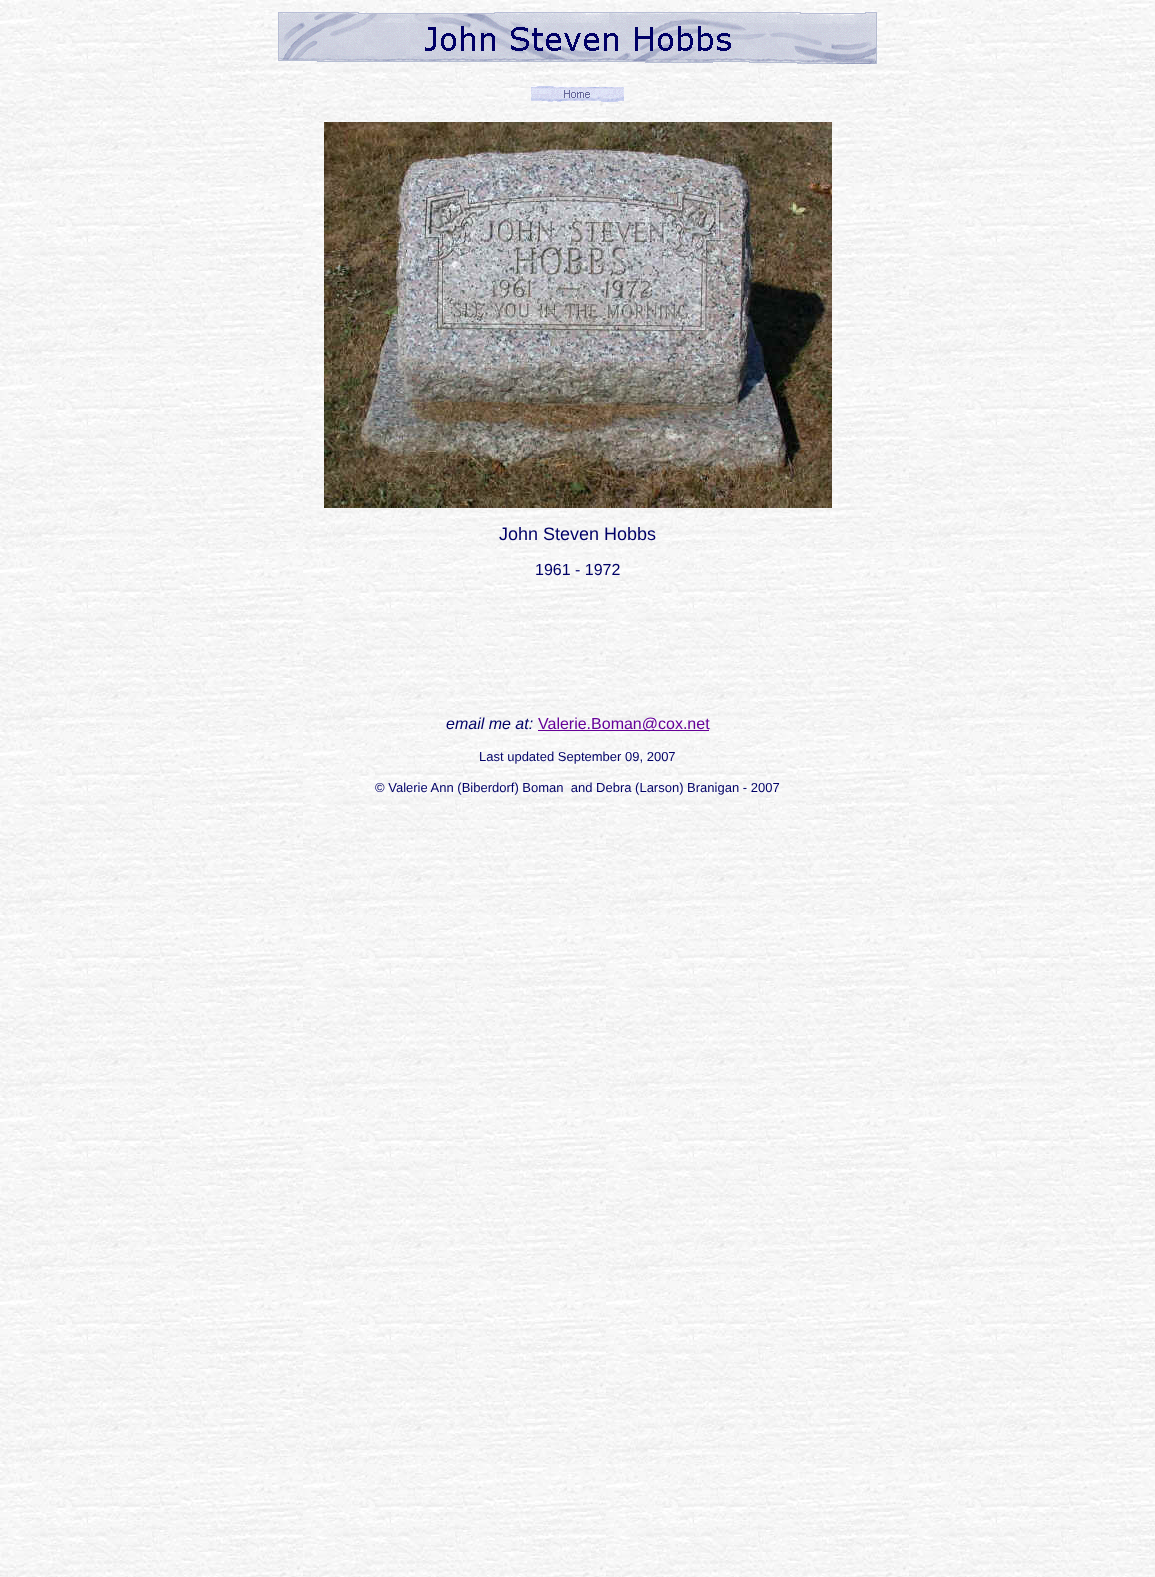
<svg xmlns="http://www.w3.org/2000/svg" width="1155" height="1577">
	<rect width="100%" height="100%" fill="#FFFFFF" />
	<image x="0" y="0" width="1155" height="1577" href="assets/img1.png" />
	<image x="278" y="12" width="600" height="52" href="assets/img2.png" />
	<image x="531" y="86" width="93" height="16" href="assets/img3.png" />
	<image x="324" y="122" width="508" height="386" href="assets/img4.png" />
	<text x="499" y="540" font-family="Liberation Sans" font-size="18" fill="#000066">John Steven Hobbs</text>
	<text x="535" y="575" font-family="Liberation Sans" font-size="16" fill="#000066">1961 - 1972</text>
	<text x="446" y="729" font-family="Liberation Sans" font-size="16" font-style="italic" fill="#000066">email me at:</text>
	<rect x="538" y="730" width="171" height="1" fill="#660099" />
	<text x="538" y="729" font-family="Liberation Sans" font-size="16" fill="#660099">Valerie.Boman@cox.net</text>
	<g font-family="Liberation Sans" font-size="13" fill="#000066">
		<text x="479" y="761">Last updated September 09, 2007</text>
		<text x="375" y="792" xml:space="preserve">© Valerie Ann (Biberdorf) Boman  and Debra (Larson) Branigan - 2007</text>
	</g>
</svg>
